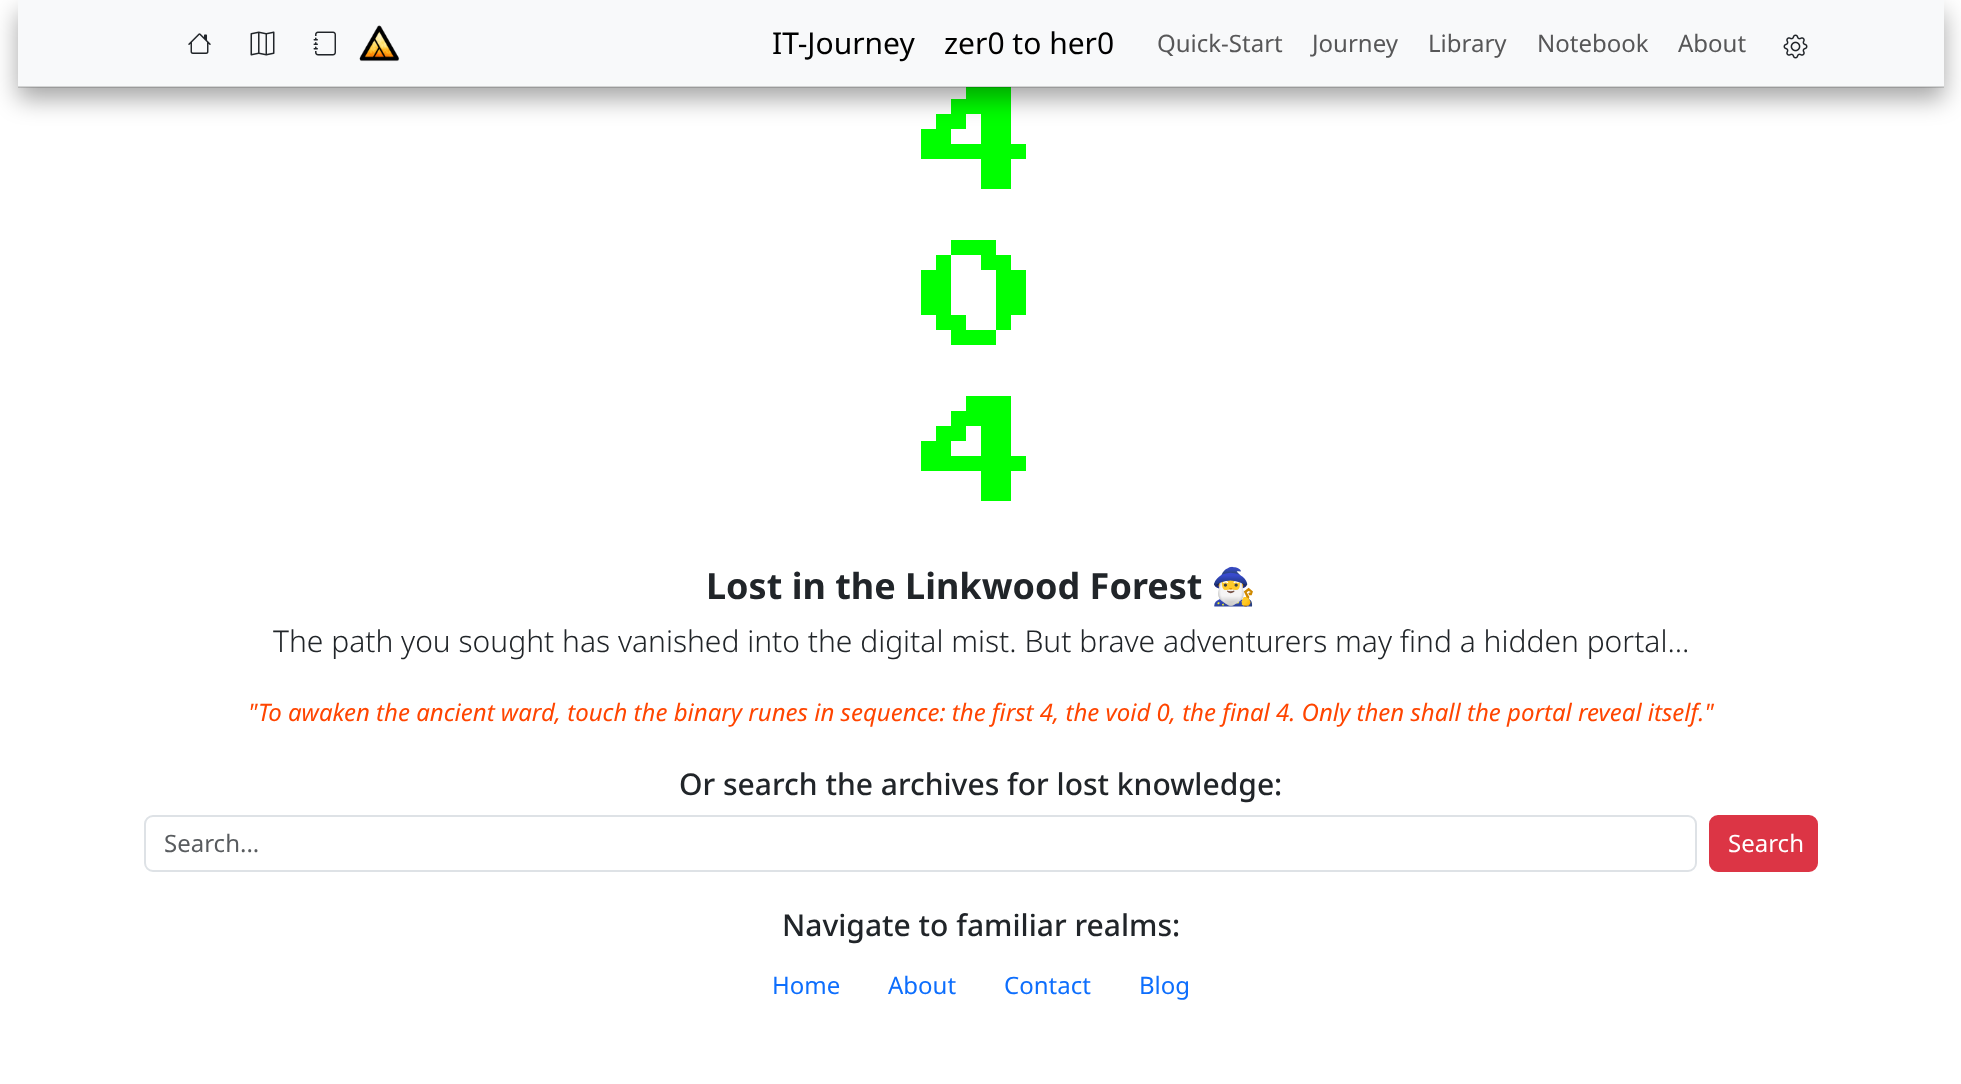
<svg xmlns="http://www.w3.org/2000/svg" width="1961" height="1084">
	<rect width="100%" height="100%" fill="#FFFFFF" />
	<text x="921" y="204" font-family="'Press Start 2P'" font-size="120" fill="#00FF00">4</text>
	<rect x="966" y="84" width="45" height="3" fill="#FFFFFF" />
	<rect x="18" y="12" width="1926" height="87" fill="#000000" fill-opacity="0.35" filter="blur(12px)" />
	<rect x="18" y="0" width="1926" height="87" fill="#F8F9FA" />
	<rect x="18" y="86" width="1926" height="2" fill="#000000" fill-opacity="0.15" />
	<image x="188" y="33" width="23" height="21" href="assets/img1.png" />
	<image x="250" y="31" width="25" height="25" href="assets/img2.png" />
	<image x="313" y="31" width="23" height="25" href="assets/img3.png" />
	<image x="359" y="25" width="41" height="37" href="assets/img4.png" />
	<g font-family="Noto Sans" font-size="30" fill="#000000">
		<text x="772" y="54">IT-Journey</text>
		<text x="944" y="54">zer0 to her0</text>
	</g>
	<g font-family="Noto Sans" font-size="24" fill="#575758">
		<text x="1157" y="52">Quick-Start</text>
		<text x="1312" y="52">Journey</text>
		<text x="1428" y="52">Library</text>
		<text x="1537" y="52">Notebook</text>
		<text x="1678" y="52">About</text>
	</g>
	<image x="1783" y="34" width="25" height="25" href="assets/img5.png" />
	<g font-family="'Press Start 2P'" font-size="120" fill="#00FF00">
		<text x="921" y="360">0</text>
		<text x="921" y="516">4</text>
	</g>
	<text x="706" y="599" font-family="Noto Sans" font-size="36" font-weight="700" fill="#212529">Lost in the Linkwood Forest</text>
	<text x="1211" y="599" font-family="Noto Color Emoji" font-size="36" font-weight="700" fill="#212529">🧙‍♂️</text>
	<text x="273" y="652" font-family="Noto Sans" font-size="30" font-weight="300" fill="#212529">The path you sought has vanished into the digital mist. But brave adventurers may find a hidden portal...</text>
	<text x="248" y="721" font-family="Noto Sans" font-size="24" font-style="italic" fill="#FF4500">"To awaken the ancient ward, touch the binary runes in sequence: the first 4, the void 0, the final 4. Only then shall the portal reveal itself."</text>
	<text x="679" y="795" font-family="Noto Sans" font-size="30" font-weight="500" fill="#212529">Or search the archives for lost knowledge:</text>
	<rect x="145" y="816" width="1551" height="55" rx="8" fill="none" stroke="#DEE2E6" stroke-width="2" />
	<text x="164" y="852" font-family="Noto Sans" font-size="24" fill="#595C5F">Search...</text>
	<rect x="1710" y="816" width="107" height="55" rx="8" fill="#DC3545" stroke="#DC3545" stroke-width="2" />
	<text x="1728" y="852" font-family="Noto Sans" font-size="24" fill="#FFFFFF">Search</text>
	<text x="782" y="936" font-family="Noto Sans" font-size="30" font-weight="500" fill="#212529">Navigate to familiar realms:</text>
	<g font-family="Noto Sans" font-size="24" fill="#0D6EFD">
		<text x="772" y="994">Home</text>
		<text x="888" y="994">About</text>
		<text x="1004" y="994">Contact</text>
		<text x="1139" y="994">Blog</text>
	</g>
</svg>
